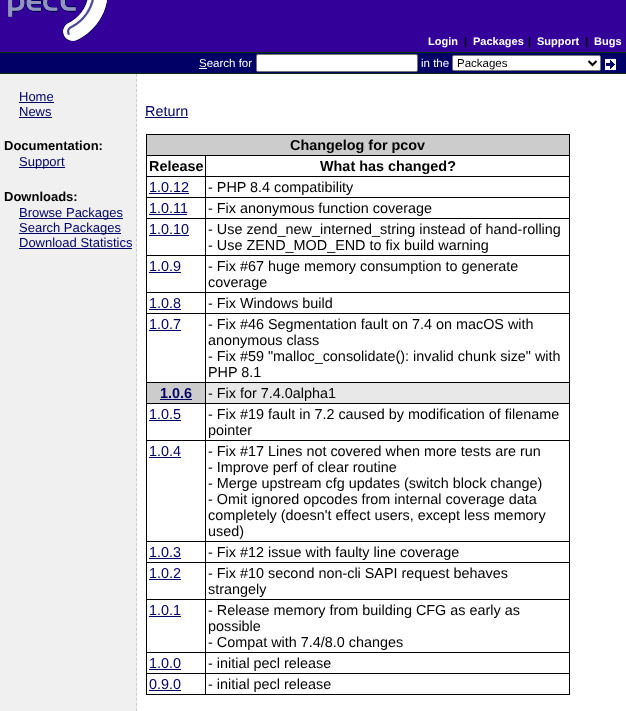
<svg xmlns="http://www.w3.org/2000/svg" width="626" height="711">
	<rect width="100%" height="100%" fill="#FFFFFF" />
	<rect x="0" y="0" width="626" height="52" fill="#330099" />
	<image x="8" y="0" width="99" height="41" href="assets/img1.png" />
	<text x="428" y="45" font-family="Liberation Sans" font-size="11" font-weight="700" fill="#FFFFFF">Login</text>
	<text x="464" y="45" font-family="Liberation Sans" font-size="11" font-weight="700" fill="#000000">|</text>
	<text x="473" y="45" font-family="Liberation Sans" font-size="11" font-weight="700" fill="#FFFFFF">Packages</text>
	<text x="528" y="45" font-family="Liberation Sans" font-size="11" font-weight="700" fill="#000000">|</text>
	<text x="537" y="45" font-family="Liberation Sans" font-size="11" font-weight="700" fill="#FFFFFF">Support</text>
	<text x="585" y="45" font-family="Liberation Sans" font-size="11" font-weight="700" fill="#000000">|</text>
	<text x="594" y="45" font-family="Liberation Sans" font-size="11" font-weight="700" fill="#FFFFFF">Bugs</text>
	<rect x="0" y="53" width="626" height="20" fill="#000066" />
	<rect x="0" y="52" width="626" height="1" fill="#003300" />
	<rect x="0" y="73" width="626" height="1" fill="#003300" />
	<text x="199" y="67" font-family="Liberation Sans" font-size="11.5" fill="#FFFFFF">Search for</text>
	<rect x="199" y="68" width="8" height="1" fill="#FFFFFF" />
	<rect x="256.5" y="54.5" width="161" height="17" rx="1.5" fill="#FFFFFF" stroke="#767676" />
	<text x="421" y="67" font-family="Liberation Sans" font-size="11.5" fill="#FFFFFF">in the</text>
	<rect x="452.5" y="55.5" width="148" height="15" rx="1.5" fill="#FFFFFF" stroke="#767676" />
	<path d="M588.5 61L592.5 65L596.5 61" fill="none" stroke="#000000" stroke-width="2" />
	<text x="457" y="67" font-family="Liberation Sans" font-size="11.5" fill="#000000">Packages</text>
	<image x="605" y="59" width="11" height="11" href="assets/img2.png" />
	<rect x="0" y="74" width="137" height="637" fill="#F0F0F0" />
	<path d="M136.5 74V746" fill="none" stroke="#CCCCCC" stroke-dasharray="3 1.99" />
	<text x="19" y="101" font-family="Liberation Sans" font-size="13" fill="#000066">Home</text>
	<rect x="19" y="102" width="35" height="1" fill="#000066" />
	<text x="19" y="116" font-family="Liberation Sans" font-size="13" fill="#000066">News</text>
	<rect x="19" y="117" width="33" height="1" fill="#000066" />
	<text x="4" y="150" font-family="Liberation Sans" font-size="13" font-weight="700" fill="#000000">Documentation:</text>
	<rect x="19" y="167" width="46" height="1" fill="#000066" />
	<text x="19" y="166" font-family="Liberation Sans" font-size="13" fill="#000066">Support</text>
	<text x="4" y="201" font-family="Liberation Sans" font-size="13" font-weight="700" fill="#000000">Downloads:</text>
	<rect x="19" y="218" width="104" height="1" fill="#000066" />
	<text x="19" y="217" font-family="Liberation Sans" font-size="13" fill="#000066">Browse Packages</text>
	<rect x="19" y="233" width="102" height="1" fill="#000066" />
	<g font-family="Liberation Sans" font-size="13" fill="#000066">
		<text x="19" y="232">Search Packages</text>
		<text x="19" y="247">Download Statistics</text>
	</g>
	<rect x="19" y="248" width="113" height="1" fill="#000066" />
	<text x="145" y="116" font-family="Liberation Sans" font-size="14.4" fill="#000066">Return</text>
	<rect x="145" y="117" width="43" height="1" fill="#000066" />
	<rect x="146" y="134" width="424" height="561" fill="#000000" />
	<rect x="147" y="135" width="422" height="20" fill="#CCCCCC" />
	<text x="290" y="150" font-family="Liberation Sans" font-size="14.4" font-weight="700" fill="#000000">Changelog for pcov</text>
	<rect x="147" y="156" width="58" height="20" fill="#FFFFFF" />
	<text x="149" y="171" font-family="Liberation Sans" font-size="14.4" font-weight="700" fill="#000000">Release</text>
	<rect x="206" y="156" width="363" height="20" fill="#FFFFFF" />
	<text x="320" y="171" font-family="Liberation Sans" font-size="14.4" font-weight="700" fill="#000000">What has changed?</text>
	<rect x="147" y="177" width="58" height="20" fill="#FFFFFF" />
	<text x="149" y="192" font-family="Liberation Sans" font-size="14.4" fill="#000066">1.0.12</text>
	<rect x="149" y="193" width="40" height="1" fill="#000066" />
	<rect x="206" y="177" width="363" height="20" fill="#FFFFFF" />
	<text x="208" y="192" font-family="Liberation Sans" font-size="14.4" fill="#000000">- PHP 8.4 compatibility</text>
	<rect x="147" y="198" width="58" height="20" fill="#FFFFFF" />
	<text x="149" y="213" font-family="Liberation Sans" font-size="14.4" fill="#000066">1.0.11</text>
	<rect x="149" y="214" width="38" height="1" fill="#000066" />
	<rect x="206" y="198" width="363" height="20" fill="#FFFFFF" />
	<text x="208" y="213" font-family="Liberation Sans" font-size="14.4" fill="#000000">- Fix anonymous function coverage</text>
	<rect x="147" y="219" width="58" height="36" fill="#FFFFFF" />
	<text x="149" y="234" font-family="Liberation Sans" font-size="14.4" fill="#000066">1.0.10</text>
	<rect x="149" y="235" width="40" height="1" fill="#000066" />
	<rect x="206" y="219" width="363" height="36" fill="#FFFFFF" />
	<g font-family="Liberation Sans" font-size="14.4" fill="#000000">
		<text x="208" y="234">- Use zend_new_interned_string instead of hand-rolling</text>
		<text x="208" y="250">- Use ZEND_MOD_END to fix build warning</text>
	</g>
	<rect x="147" y="256" width="58" height="36" fill="#FFFFFF" />
	<text x="149" y="271" font-family="Liberation Sans" font-size="14.4" fill="#000066">1.0.9</text>
	<rect x="149" y="272" width="32" height="1" fill="#000066" />
	<rect x="206" y="256" width="363" height="36" fill="#FFFFFF" />
	<g font-family="Liberation Sans" font-size="14.4" fill="#000000">
		<text x="208" y="271">- Fix #67 huge memory consumption to generate</text>
		<text x="208" y="287">coverage</text>
	</g>
	<rect x="147" y="293" width="58" height="20" fill="#FFFFFF" />
	<text x="149" y="308" font-family="Liberation Sans" font-size="14.4" fill="#000066">1.0.8</text>
	<rect x="149" y="309" width="32" height="1" fill="#000066" />
	<rect x="206" y="293" width="363" height="20" fill="#FFFFFF" />
	<text x="208" y="308" font-family="Liberation Sans" font-size="14.4" fill="#000000">- Fix Windows build</text>
	<rect x="147" y="314" width="58" height="68" fill="#FFFFFF" />
	<text x="149" y="329" font-family="Liberation Sans" font-size="14.4" fill="#000066">1.0.7</text>
	<rect x="149" y="330" width="32" height="1" fill="#000066" />
	<rect x="206" y="314" width="363" height="68" fill="#FFFFFF" />
	<g font-family="Liberation Sans" font-size="14.4" fill="#000000">
		<text x="208" y="329">- Fix #46 Segmentation fault on 7.4 on macOS with</text>
		<text x="208" y="345">anonymous class</text>
		<text x="208" y="361">- Fix #59 "malloc_consolidate(): invalid chunk size" with</text>
		<text x="208" y="377">PHP 8.1</text>
	</g>
	<rect x="147" y="383" width="58" height="20" fill="#CCCCCC" />
	<text x="160" y="398" font-family="Liberation Sans" font-size="14.4" font-weight="700" fill="#000066">1.0.6</text>
	<rect x="160" y="399" width="32" height="1" fill="#000066" />
	<rect x="206" y="383" width="363" height="20" fill="#E8E8E8" />
	<text x="208" y="398" font-family="Liberation Sans" font-size="14.4" fill="#000000">- Fix for 7.4.0alpha1</text>
	<rect x="147" y="404" width="58" height="36" fill="#FFFFFF" />
	<text x="149" y="419" font-family="Liberation Sans" font-size="14.4" fill="#000066">1.0.5</text>
	<rect x="149" y="420" width="32" height="1" fill="#000066" />
	<rect x="206" y="404" width="363" height="36" fill="#FFFFFF" />
	<g font-family="Liberation Sans" font-size="14.4" fill="#000000">
		<text x="208" y="419">- Fix #19 fault in 7.2 caused by modification of filename</text>
		<text x="208" y="435">pointer</text>
	</g>
	<rect x="147" y="441" width="58" height="100" fill="#FFFFFF" />
	<text x="149" y="456" font-family="Liberation Sans" font-size="14.4" fill="#000066">1.0.4</text>
	<rect x="149" y="457" width="32" height="1" fill="#000066" />
	<rect x="206" y="441" width="363" height="100" fill="#FFFFFF" />
	<g font-family="Liberation Sans" font-size="14.4" fill="#000000">
		<text x="208" y="456">- Fix #17 Lines not covered when more tests are run</text>
		<text x="208" y="472">- Improve perf of clear routine</text>
		<text x="208" y="488">- Merge upstream cfg updates (switch block change)</text>
		<text x="208" y="504">- Omit ignored opcodes from internal coverage data</text>
		<text x="208" y="520">completely (doesn't effect users, except less memory</text>
		<text x="208" y="536">used)</text>
	</g>
	<rect x="147" y="542" width="58" height="20" fill="#FFFFFF" />
	<text x="149" y="557" font-family="Liberation Sans" font-size="14.4" fill="#000066">1.0.3</text>
	<rect x="149" y="558" width="32" height="1" fill="#000066" />
	<rect x="206" y="542" width="363" height="20" fill="#FFFFFF" />
	<text x="208" y="557" font-family="Liberation Sans" font-size="14.4" fill="#000000">- Fix #12 issue with faulty line coverage</text>
	<rect x="147" y="563" width="58" height="36" fill="#FFFFFF" />
	<text x="149" y="578" font-family="Liberation Sans" font-size="14.4" fill="#000066">1.0.2</text>
	<rect x="149" y="579" width="32" height="1" fill="#000066" />
	<rect x="206" y="563" width="363" height="36" fill="#FFFFFF" />
	<g font-family="Liberation Sans" font-size="14.4" fill="#000000">
		<text x="208" y="578">- Fix #10 second non-cli SAPI request behaves</text>
		<text x="208" y="594">strangely</text>
	</g>
	<rect x="147" y="600" width="58" height="52" fill="#FFFFFF" />
	<text x="149" y="615" font-family="Liberation Sans" font-size="14.4" fill="#000066">1.0.1</text>
	<rect x="149" y="616" width="32" height="1" fill="#000066" />
	<rect x="206" y="600" width="363" height="52" fill="#FFFFFF" />
	<g font-family="Liberation Sans" font-size="14.4" fill="#000000">
		<text x="208" y="615">- Release memory from building CFG as early as</text>
		<text x="208" y="631">possible</text>
		<text x="208" y="647">- Compat with 7.4/8.0 changes</text>
	</g>
	<rect x="147" y="653" width="58" height="20" fill="#FFFFFF" />
	<text x="149" y="668" font-family="Liberation Sans" font-size="14.4" fill="#000066">1.0.0</text>
	<rect x="149" y="669" width="32" height="1" fill="#000066" />
	<rect x="206" y="653" width="363" height="20" fill="#FFFFFF" />
	<text x="208" y="668" font-family="Liberation Sans" font-size="14.4" fill="#000000">- initial pecl release</text>
	<rect x="147" y="674" width="58" height="20" fill="#FFFFFF" />
	<text x="149" y="689" font-family="Liberation Sans" font-size="14.4" fill="#000066">0.9.0</text>
	<rect x="149" y="690" width="32" height="1" fill="#000066" />
	<rect x="206" y="674" width="363" height="20" fill="#FFFFFF" />
	<text x="208" y="689" font-family="Liberation Sans" font-size="14.4" fill="#000000">- initial pecl release</text>
</svg>
